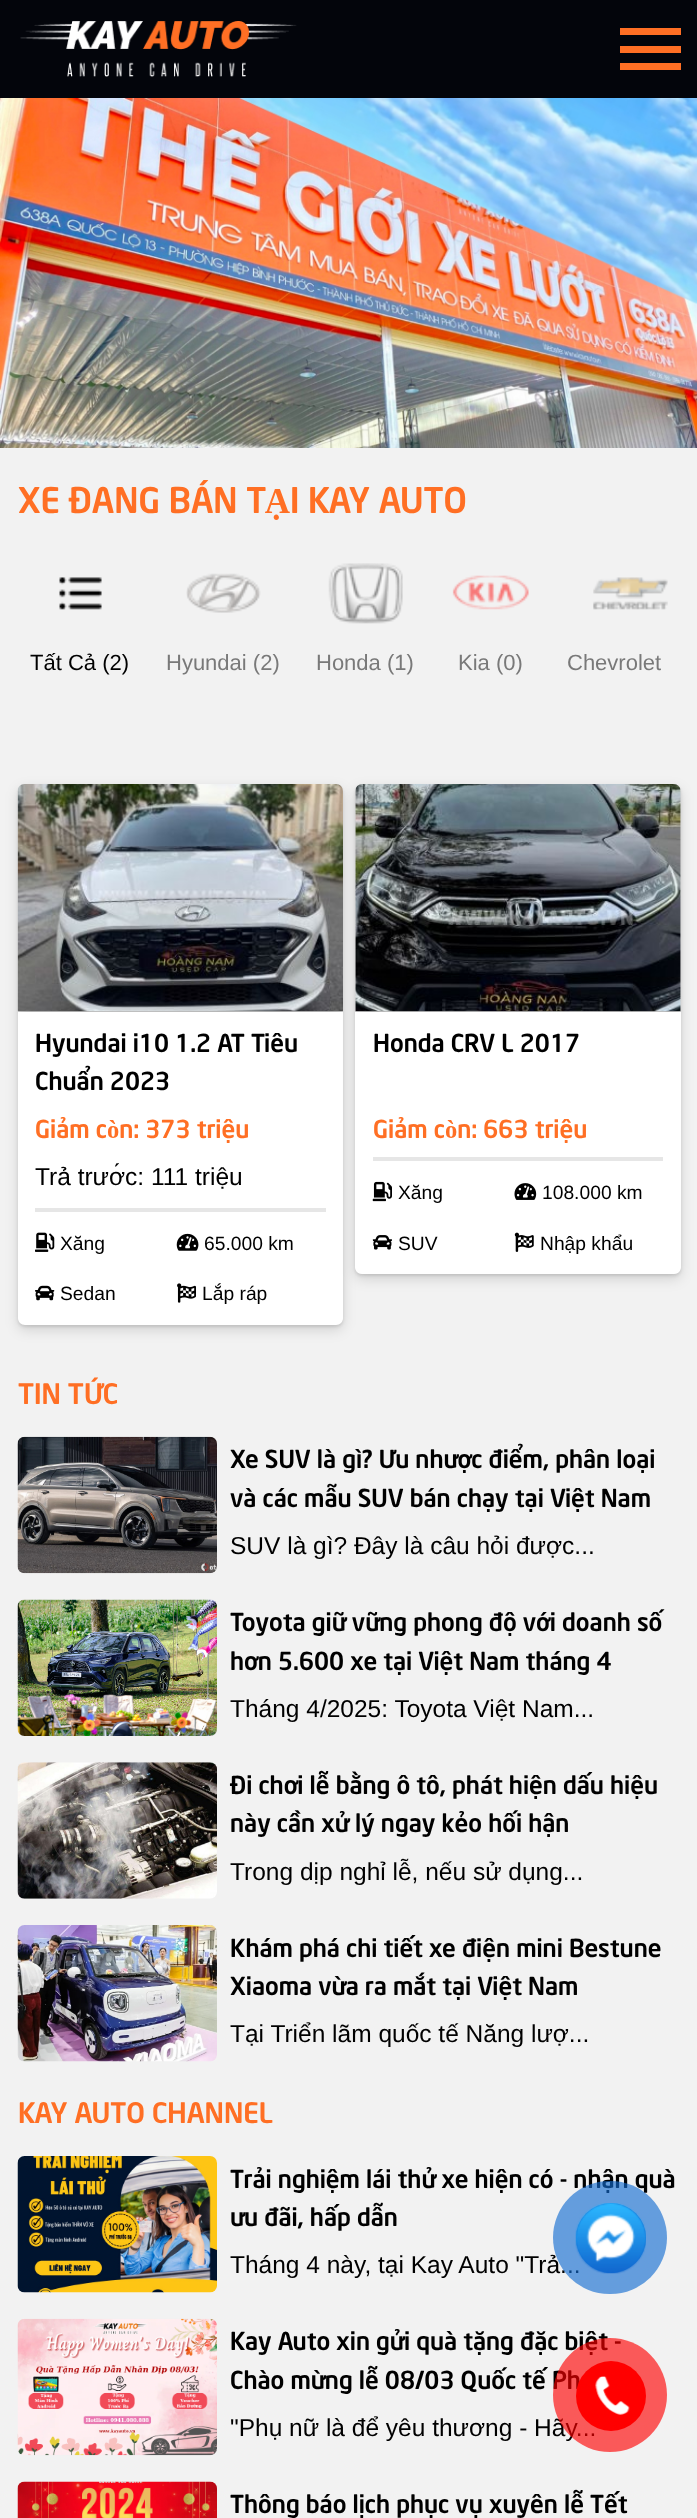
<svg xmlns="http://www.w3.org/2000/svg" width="697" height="2518">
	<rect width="100%" height="100%" fill="#F2F2F2" />
	<rect x="0" y="0" width="697" height="98" fill="#03050B" />
	<image x="20" y="21" width="277" height="56" href="assets/img1.png" />
	<rect x="620" y="28" width="61" height="7" fill="#FF6F24" />
	<rect x="620" y="46" width="61" height="7" fill="#FF6F24" />
	<rect x="620" y="63" width="61" height="7" fill="#FF6F24" />
	<image x="0" y="98" width="697" height="350" href="assets/img2.png" />
	<text x="18" y="513" font-family="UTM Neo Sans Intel" font-size="35" font-weight="700" fill="#FF6F24">XE ĐANG BÁN TẠI KAY AUTO</text>
	<image x="59" y="577" width="43" height="33" href="assets/img3.png" />
	<text x="30" y="670" font-family="Liberation Sans" font-size="22" fill="#000000">Tất Cả (2)</text>
	<image x="186" y="573" width="75" height="40" href="assets/img4.png" />
	<text x="166" y="670" font-family="Liberation Sans" font-size="22" fill="#797979">Hyundai (2)</text>
	<image x="328" y="563" width="75" height="61" href="assets/img5.png" />
	<text x="316" y="670" font-family="Liberation Sans" font-size="22" fill="#797979">Honda (1)</text>
	<image x="452" y="575" width="77" height="35" href="assets/img6.png" />
	<text x="458" y="670" font-family="Liberation Sans" font-size="22" fill="#797979">Kia (0)</text>
	<image x="593" y="577" width="75" height="33" href="assets/img7.png" />
	<text x="567" y="670" font-family="Liberation Sans" font-size="22" fill="#797979">Chevrolet</text>
	<rect x="18" y="786" width="325" height="541" rx="7" fill="#000000" fill-opacity="0.11" filter="blur(1.5px)" />
	<rect x="18" y="789" width="325" height="541" rx="7" fill="#000000" fill-opacity="0.13" filter="blur(6.5px)" />
	<path d="M18 1012H343V1318C343 1322 340 1325 336 1325H25C21 1325 18 1322 18 1318Z" fill="#FFFFFF" />
	<rect x="355" y="789" width="326" height="490" rx="7" fill="#000000" fill-opacity="0.13" filter="blur(6.5px)" />
	<image x="17" y="784" width="326" height="228" href="assets/img8.png" />
	<g font-family="UTM Neo Sans Intel" font-size="24.5" font-weight="700" fill="#000000">
		<text x="35" y="1052">Hyundai i10 1.2 AT Tiêu</text>
		<text x="35" y="1090">Chuẩn 2023</text>
	</g>
	<text x="35" y="1138" font-family="UTM Neo Sans Intel" font-size="24.5" font-weight="700" fill="#FF6F24">Giảm còn: 373 triệu</text>
	<text x="35" y="1185" font-family="Liberation Sans" font-size="24.5" fill="#000000">Trả trước: 111 triệu</text>
	<rect x="35" y="1208" width="291" height="4" fill="#E6E6E6" />
	<image x="35" y="1232" width="20" height="20" href="assets/img9.png" />
	<text x="60" y="1250" font-family="Liberation Sans" font-size="19.25" fill="#000000">Xăng</text>
	<image x="176" y="1233" width="23" height="18" href="assets/img10.png" />
	<text x="204" y="1250" font-family="Liberation Sans" font-size="19.25" fill="#000000">65.000 km</text>
	<image x="35" y="1285" width="20" height="16" href="assets/img11.png" />
	<text x="60" y="1300" font-family="Liberation Sans" font-size="19.25" fill="#000000">Sedan</text>
	<image x="177" y="1283" width="19" height="20" href="assets/img12.png" />
	<text x="202" y="1300" font-family="Liberation Sans" font-size="19.25" fill="#000000">Lắp ráp</text>
	<rect x="355" y="786" width="326" height="490" rx="7" fill="#000000" fill-opacity="0.11" filter="blur(1.5px)" />
	<image x="355" y="784" width="326" height="228" href="assets/img13.png" />
	<path d="M355 1012H681V1267C681 1271 678 1274 674 1274H362C358 1274 355 1271 355 1267Z" fill="#FFFFFF" />
	<text x="373" y="1052" font-family="UTM Neo Sans Intel" font-size="24.5" font-weight="700" fill="#000000">Honda CRV L 2017</text>
	<text x="373" y="1138" font-family="UTM Neo Sans Intel" font-size="24.5" font-weight="700" fill="#FF6F24">Giảm còn: 663 triệu</text>
	<rect x="373" y="1157" width="290" height="4" fill="#E6E6E6" />
	<image x="372" y="1181" width="20" height="21" href="assets/img14.png" />
	<text x="398" y="1199" font-family="Liberation Sans" font-size="19.25" fill="#000000">Xăng</text>
	<image x="514" y="1183" width="23" height="17" href="assets/img15.png" />
	<text x="542" y="1199" font-family="Liberation Sans" font-size="19.25" fill="#000000">108.000 km</text>
	<image x="372" y="1235" width="20" height="15" href="assets/img16.png" />
	<text x="398" y="1250" font-family="Liberation Sans" font-size="19.25" fill="#000000">SUV</text>
	<image x="514" y="1232" width="20" height="20" href="assets/img17.png" />
	<text x="540" y="1250" font-family="Liberation Sans" font-size="19.25" fill="#000000">Nhập khẩu</text>
	<text x="18" y="1404" font-family="UTM Neo Sans Intel" font-size="28" font-weight="700" fill="#FF6F24">TIN TỨC</text>
	<image x="17" y="1436" width="200" height="138" href="assets/img18.png" />
	<g font-family="UTM Neo Sans Intel" font-size="24.5" font-weight="700" fill="#000000">
		<text x="230" y="1468">Xe SUV là gì? Ưu nhược điểm, phân loại</text>
		<text x="230" y="1507">và các mẫu SUV bán chạy tại Việt Nam</text>
	</g>
	<text x="230" y="1554" font-family="Liberation Sans" font-size="24.5" fill="#000000">SUV là gì? Đây là câu hỏi được...</text>
	<image x="17" y="1599" width="200" height="137" href="assets/img19.png" />
	<g font-family="UTM Neo Sans Intel" font-size="24.5" font-weight="700" fill="#000000">
		<text x="230" y="1631">Toyota giữ vững phong độ với doanh số</text>
		<text x="230" y="1670">hơn 5.600 xe tại Việt Nam tháng 4</text>
	</g>
	<text x="230" y="1717" font-family="Liberation Sans" font-size="24.5" fill="#000000">Tháng 4/2025: Toyota Việt Nam...</text>
	<image x="17" y="1762" width="200" height="137" href="assets/img20.png" />
	<g font-family="UTM Neo Sans Intel" font-size="24.5" font-weight="700" fill="#000000">
		<text x="230" y="1794">Đi chơi lễ bằng ô tô, phát hiện dấu hiệu</text>
		<text x="230" y="1832">này cần xử lý ngay kẻo hối hận</text>
	</g>
	<text x="230" y="1880" font-family="Liberation Sans" font-size="24.5" fill="#000000">Trong dịp nghỉ lễ, nếu sử dụng...</text>
	<image x="17" y="1925" width="200" height="137" href="assets/img21.png" />
	<g font-family="UTM Neo Sans Intel" font-size="24.5" font-weight="700" fill="#000000">
		<text x="230" y="1957">Khám phá chi tiết xe điện mini Bestune</text>
		<text x="230" y="1995">Xiaoma vừa ra mắt tại Việt Nam</text>
	</g>
	<text x="230" y="2042" font-family="Liberation Sans" font-size="24.5" fill="#000000">Tại Triển lãm quốc tế Năng lượ...</text>
	<text x="18" y="2123" font-family="UTM Neo Sans Intel" font-size="28" font-weight="700" fill="#FF6F24">KAY AUTO CHANNEL</text>
	<image x="17" y="2156" width="200" height="137" href="assets/img22.png" />
	<g font-family="UTM Neo Sans Intel" font-size="24.5" font-weight="700" fill="#000000">
		<text x="230" y="2188">Trải nghiệm lái thử xe hiện có - nhận quà</text>
		<text x="230" y="2226">ưu đãi, hấp dẫn</text>
	</g>
	<text x="230" y="2273" font-family="Liberation Sans" font-size="24.5" fill="#000000">Tháng 4 này, tại Kay Auto "Trả...</text>
	<image x="17" y="2318" width="200" height="138" href="assets/img23.png" />
	<g font-family="UTM Neo Sans Intel" font-size="24.5" font-weight="700" fill="#000000">
		<text x="230" y="2350">Kay Auto xin gửi quà tặng đặc biệt -</text>
		<text x="230" y="2389">Chào mừng lễ 08/03 Quốc tế Ph</text>
	</g>
	<text x="230" y="2436" font-family="Liberation Sans" font-size="24.5" fill="#000000">"Phụ nữ là để yêu thương - Hãy...</text>
	<image x="17" y="2481" width="200" height="37" href="assets/img24.png" />
	<text x="230" y="2513" font-family="UTM Neo Sans Intel" font-size="24.5" font-weight="700" fill="#000000">Thông báo lịch phục vụ xuyên lễ Tết</text>
	<rect x="553" y="2181" width="114" height="113" rx="56.5" fill="#126BD1" fill-opacity="0.63" />
	<circle cx="611" cy="2238" r="35" fill="#126BD1" />
	<image x="575" y="2203" width="71" height="71" href="assets/img25.png" />
	<circle cx="610" cy="2395" r="57" fill="#FF0000" fill-opacity="0.63" />
	<circle cx="611" cy="2396" r="35" fill="#FF0000" />
	<image x="595" y="2376" width="35" height="39" href="assets/img26.png" />
</svg>
